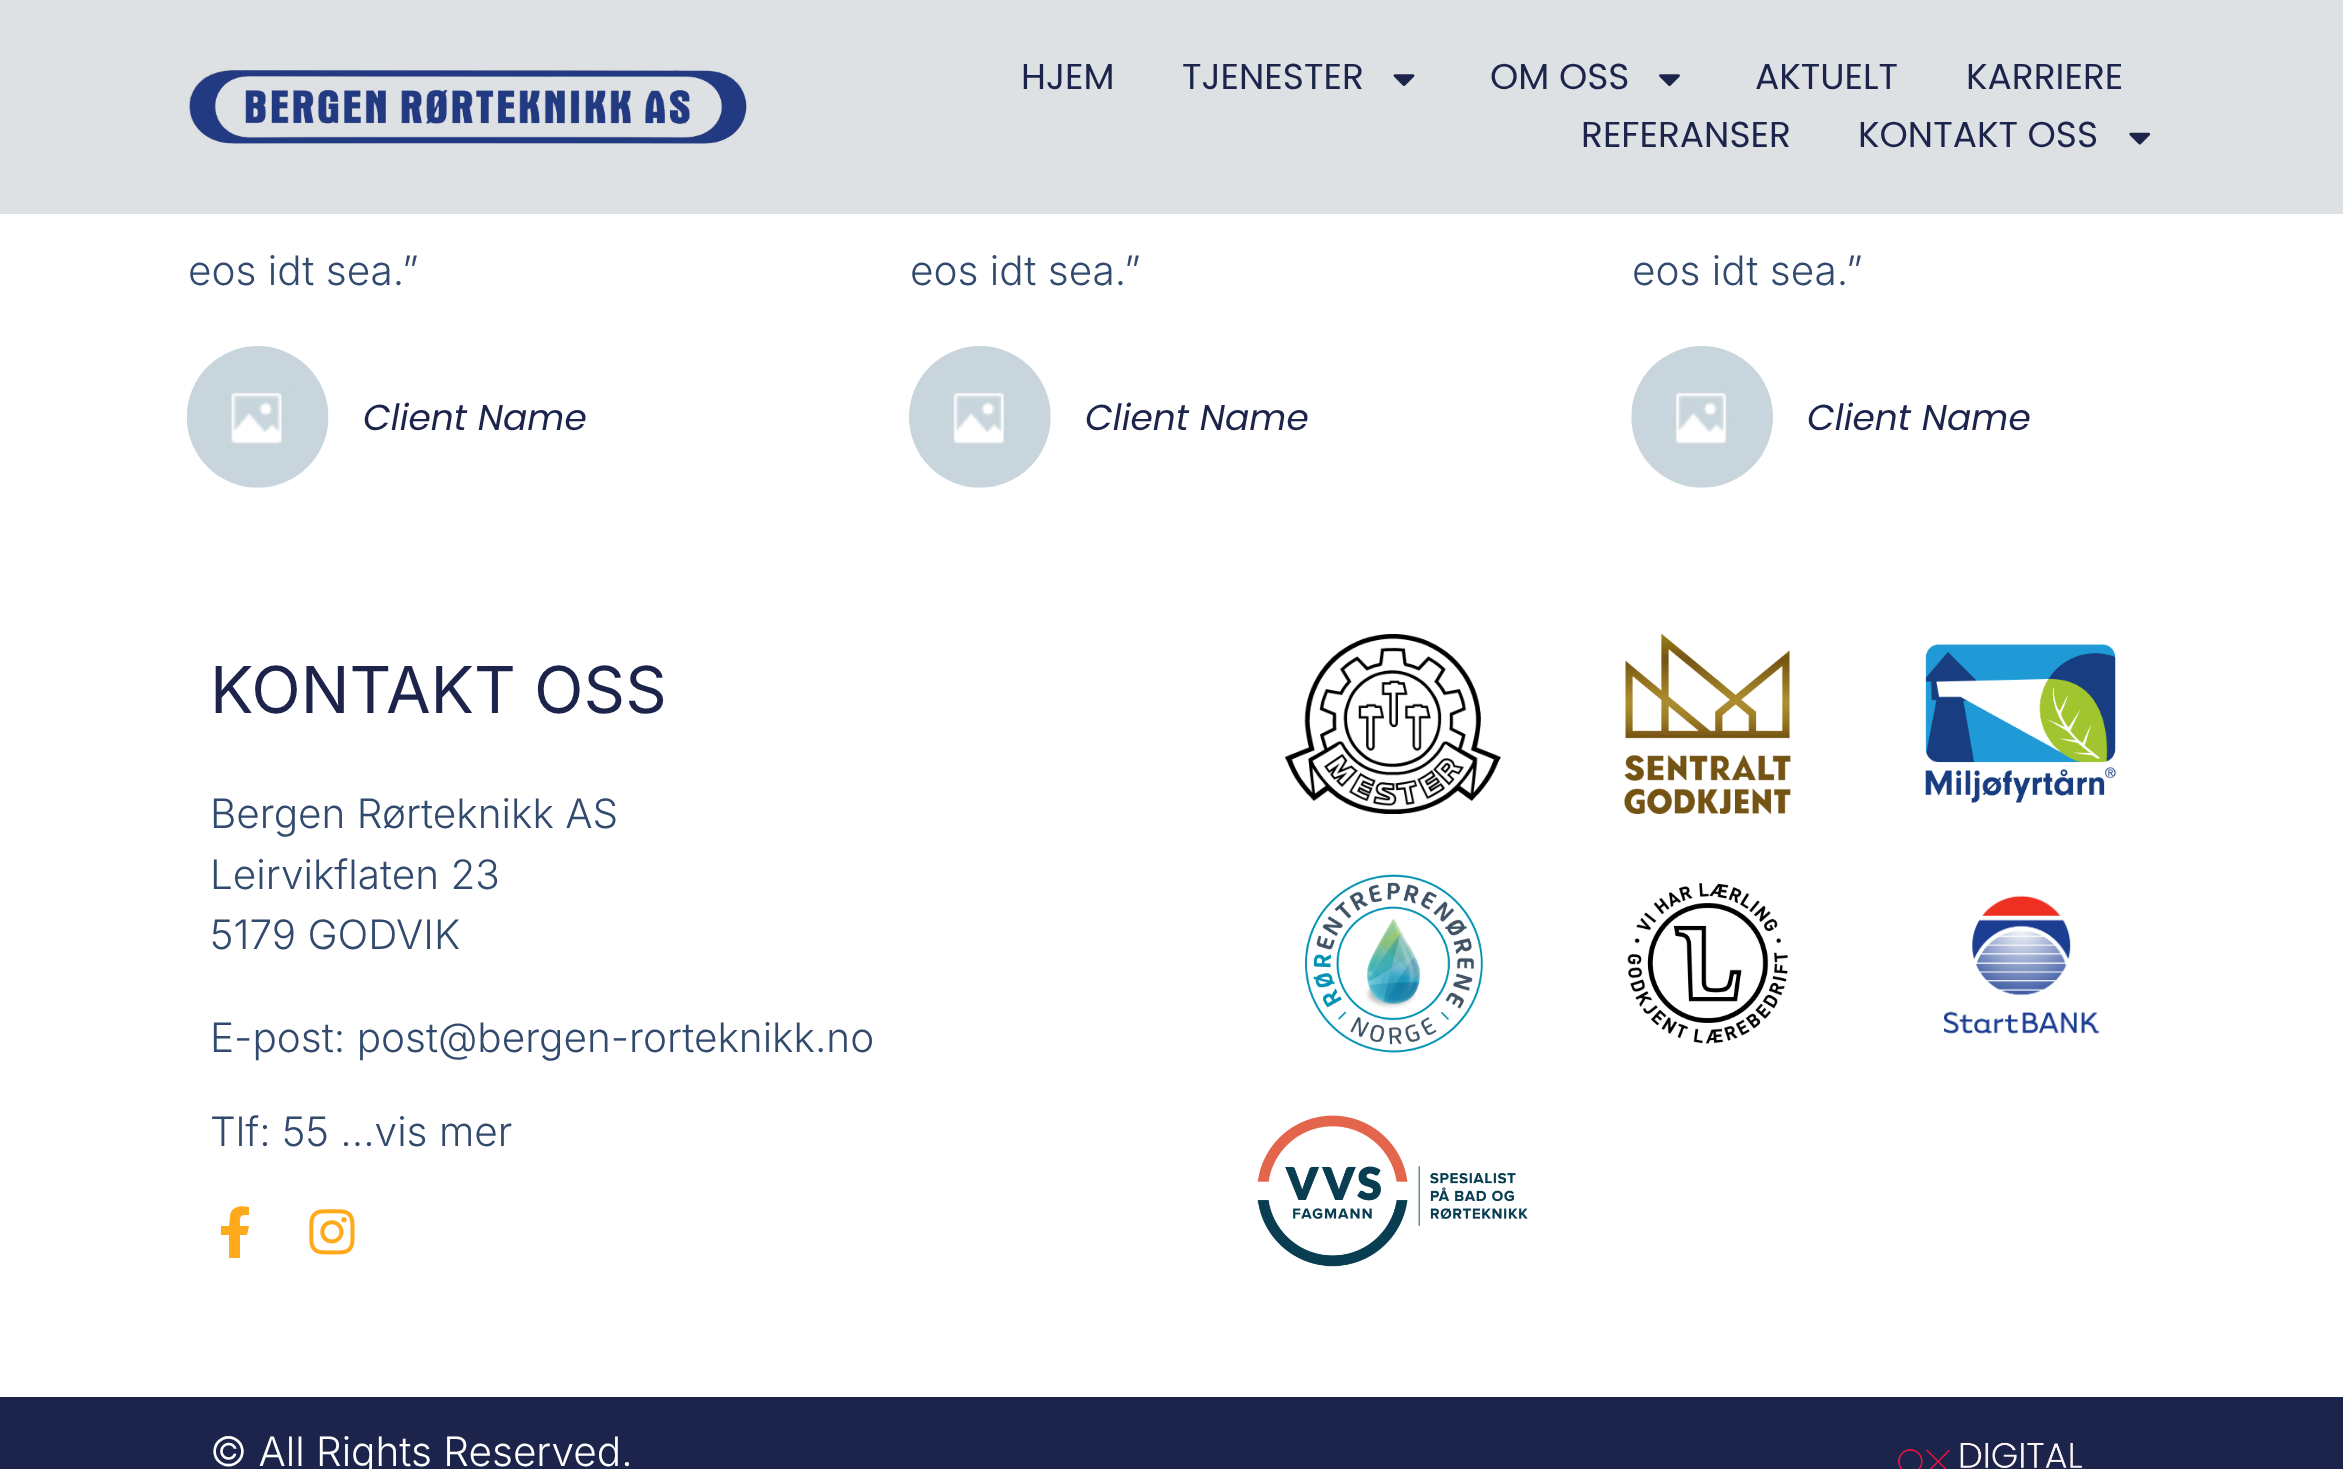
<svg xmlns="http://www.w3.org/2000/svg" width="2343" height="1469">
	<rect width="100%" height="100%" fill="#FFFFFF" />
	<rect x="0" y="0" width="2343" height="214" fill="#DDE1E4" />
	<image x="187" y="68" width="560" height="76" href="assets/img1.png" />
	<g font-family="Poppins" font-size="36" fill="#1C244B">
		<text x="1021" y="89">HJEM</text>
		<text x="1182" y="89">TJENESTER</text>
	</g>
	<image x="1393" y="74" width="22" height="13" href="assets/img2.png" />
	<text x="1490" y="89" font-family="Poppins" font-size="36" fill="#1C244B">OM OSS</text>
	<image x="1659" y="74" width="21" height="13" href="assets/img3.png" />
	<g font-family="Poppins" font-size="36" fill="#1C244B">
		<text x="1755" y="89">AKTUELT</text>
		<text x="1966" y="89">KARRIERE</text>
		<text x="1581" y="147">REFERANSER</text>
		<text x="1858" y="147">KONTAKT OSS</text>
	</g>
	<image x="2129" y="132" width="22" height="13" href="assets/img4.png" />
	<text x="188" y="285" font-family="Inter" font-size="40.5" font-weight="300" fill="#324A6D">eos idt sea.”</text>
	<image x="187" y="346" width="142" height="142" href="assets/img5.png" />
	<text x="363" y="430" font-family="Poppins" font-size="36" font-style="italic" fill="#1C244B">Client Name</text>
	<text x="910" y="285" font-family="Inter" font-size="40.5" font-weight="300" fill="#324A6D">eos idt sea.”</text>
	<image x="909" y="346" width="142" height="142" href="assets/img6.png" />
	<text x="1085" y="430" font-family="Poppins" font-size="36" font-style="italic" fill="#1C244B">Client Name</text>
	<text x="1632" y="285" font-family="Inter" font-size="40.5" font-weight="300" fill="#324A6D">eos idt sea.”</text>
	<image x="1631" y="346" width="142" height="142" href="assets/img7.png" />
	<text x="1807" y="430" font-family="Poppins" font-size="36" font-style="italic" fill="#1C244B">Client Name</text>
	<text x="210" y="713" font-family="Inter" font-size="64.75" fill="#1C244B">KONTAKT OSS</text>
	<g font-family="Inter" font-size="40.5" font-weight="300" fill="#324A6D">
		<text x="210" y="828">Bergen Rørteknikk AS</text>
		<text x="210" y="889">Leirvikflaten 23</text>
		<text x="210" y="949">5179 GODVIK</text>
		<text x="210" y="1052">E-post: post@bergen-rorteknikk.no</text>
		<text x="210" y="1146">Tlf: 55 ...vis mer</text>
	</g>
	<path d="M247 1235L249 1226H240C240 1216 239 1215 249 1215V1207C241 1205 231 1206 230 1216L229 1226H221V1235H229V1258H240V1235Z" fill="#FFAA1C" />
	<image x="309" y="1209" width="46" height="46" href="assets/img8.png" />
	<image x="1284" y="634" width="217" height="180" href="assets/img9.png" />
	<image x="1624" y="634" width="167" height="180" href="assets/img10.png" />
	<image x="1925" y="644" width="191" height="159" href="assets/img11.png" />
	<image x="1305" y="874" width="178" height="179" href="assets/img12.png" />
	<image x="1627" y="883" width="161" height="161" href="assets/img13.png" />
	<image x="1944" y="895" width="156" height="139" href="assets/img14.png" />
	<image x="1257" y="1115" width="271" height="152" href="assets/img15.png" />
	<rect x="0" y="1397" width="2343" height="72" fill="#1C244B" />
	<text x="210" y="1466" font-family="Inter" font-size="40.5" font-weight="300" fill="#FFFFFF">© All Rights Reserved.</text>
	<image x="1898" y="1442" width="184" height="27" href="assets/img16.png" />
</svg>
